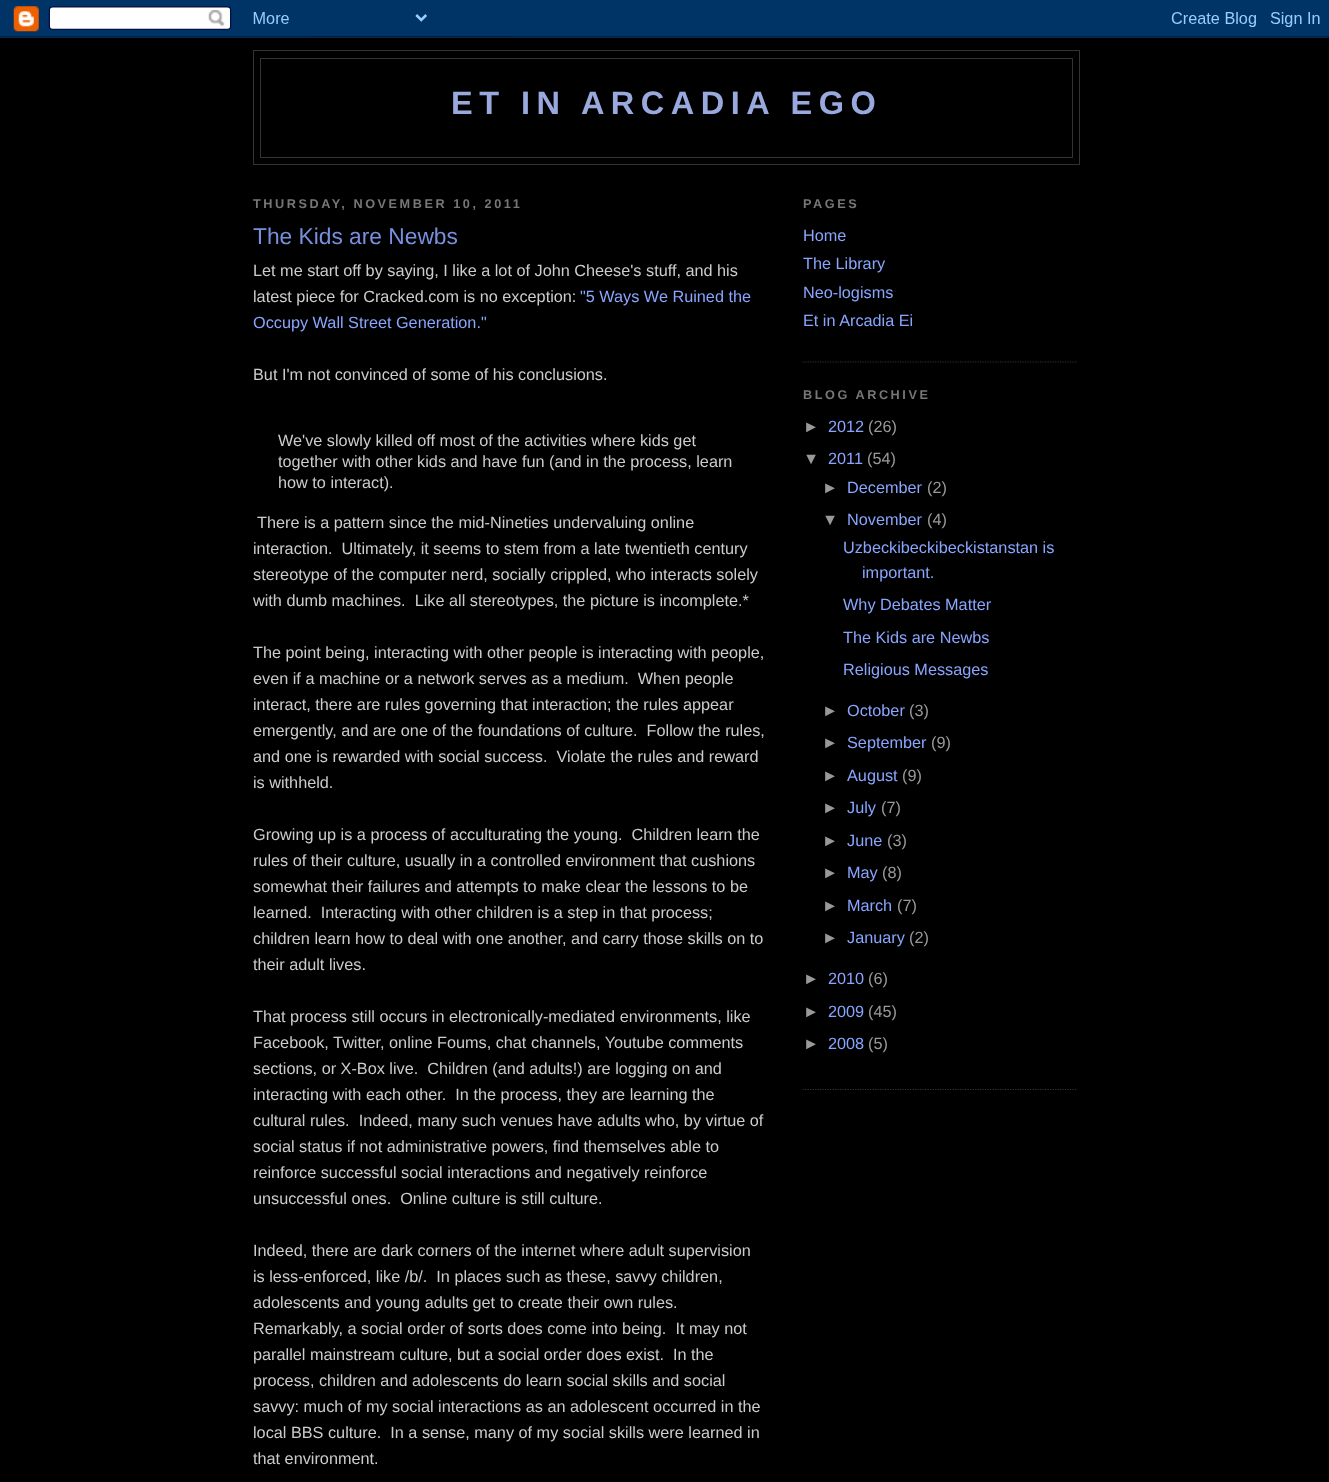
<svg xmlns="http://www.w3.org/2000/svg" width="1329" height="1482">
	<rect width="100%" height="100%" fill="#000000" />
	<image x="0" y="0" width="1329" height="38" href="assets/img1.png" />
	<rect x="253.5" y="50.5" width="826" height="114" fill="none" stroke="#333333" />
	<rect x="260.5" y="58.5" width="812" height="99" fill="none" stroke="#333333" />
	<text x="451" y="114" font-family="Liberation Sans" font-size="32.5" font-weight="700" letter-spacing="6.5" fill="#99A9DD">ET IN ARCADIA EGO</text>
	<text x="253" y="208" font-family="Liberation Sans" font-size="12.7" font-weight="700" letter-spacing="2.55" fill="#777777">THURSDAY, NOVEMBER 10, 2011</text>
	<text x="253" y="244" font-family="Liberation Sans" font-size="22.75" fill="#7790DD">The Kids are Newbs</text>
	<g font-family="Liberation Sans" font-size="16.25" fill="#CCCCCC">
		<text x="253" y="276">Let me start off by saying, I like a lot of John Cheese's stuff, and his</text>
		<text x="253" y="302">latest piece for Cracked.com is no exception:</text>
	</g>
	<g font-family="Liberation Sans" font-size="16.25" fill="#89A6FF">
		<text x="580" y="302">"5 Ways We Ruined the</text>
		<text x="253" y="328">Occupy Wall Street Generation."</text>
	</g>
	<g font-family="Liberation Sans" font-size="16.25" fill="#CCCCCC">
		<text x="253" y="380">But I'm not convinced of some of his conclusions.</text>
		<text x="278" y="446">We've slowly killed off most of the activities where kids get</text>
		<text x="278" y="467">together with other kids and have fun (and in the process, learn</text>
		<text x="278" y="488">how to interact).</text>
		<text x="257" y="528">There is a pattern since the mid-Nineties undervaluing online</text>
		<text x="253" y="554" xml:space="preserve">interaction.  Ultimately, it seems to stem from a late twentieth century</text>
		<text x="253" y="580">stereotype of the computer nerd, socially crippled, who interacts solely</text>
		<text x="253" y="606" xml:space="preserve">with dumb machines.  Like all stereotypes, the picture is incomplete.*</text>
		<text x="253" y="658">The point being, interacting with other people is interacting with people,</text>
		<text x="253" y="684" xml:space="preserve">even if a machine or a network serves as a medium.  When people</text>
		<text x="253" y="710">interact, there are rules governing that interaction; the rules appear</text>
		<text x="253" y="736" xml:space="preserve">emergently, and are one of the foundations of culture.  Follow the rules,</text>
		<text x="253" y="762" xml:space="preserve">and one is rewarded with social success.  Violate the rules and reward</text>
		<text x="253" y="788">is withheld.</text>
		<text x="253" y="840" xml:space="preserve">Growing up is a process of acculturating the young.  Children learn the</text>
		<text x="253" y="866">rules of their culture, usually in a controlled environment that cushions</text>
		<text x="253" y="892">somewhat their failures and attempts to make clear the lessons to be</text>
		<text x="253" y="918" xml:space="preserve">learned.  Interacting with other children is a step in that process;</text>
		<text x="253" y="944">children learn how to deal with one another, and carry those skills on to</text>
		<text x="253" y="970">their adult lives.</text>
		<text x="253" y="1022">That process still occurs in electronically-mediated environments, like</text>
		<text x="253" y="1048">Facebook, Twitter, online Foums, chat channels, Youtube comments</text>
		<text x="253" y="1074" xml:space="preserve">sections, or X-Box live.  Children (and adults!) are logging on and</text>
		<text x="253" y="1100" xml:space="preserve">interacting with each other.  In the process, they are learning the</text>
		<text x="253" y="1126" xml:space="preserve">cultural rules.  Indeed, many such venues have adults who, by virtue of</text>
		<text x="253" y="1152">social status if not administrative powers, find themselves able to</text>
		<text x="253" y="1178">reinforce successful social interactions and negatively reinforce</text>
		<text x="253" y="1204" xml:space="preserve">unsuccessful ones.  Online culture is still culture.</text>
		<text x="253" y="1256">Indeed, there are dark corners of the internet where adult supervision</text>
		<text x="253" y="1282" xml:space="preserve">is less-enforced, like /b/.  In places such as these, savvy children,</text>
		<text x="253" y="1308">adolescents and young adults get to create their own rules.</text>
		<text x="253" y="1334" xml:space="preserve">Remarkably, a social order of sorts does come into being.  It may not</text>
		<text x="253" y="1360" xml:space="preserve">parallel mainstream culture, but a social order does exist.  In the</text>
		<text x="253" y="1386">process, children and adolescents do learn social skills and social</text>
		<text x="253" y="1412">savvy: much of my social interactions as an adolescent occurred in the</text>
		<text x="253" y="1438" xml:space="preserve">local BBS culture.  In a sense, many of my social skills were learned in</text>
		<text x="253" y="1464">that environment.</text>
	</g>
	<path d="M802.5 362H1077.5" fill="none" stroke="#333333" stroke-width="1.2" stroke-dasharray="1.25 1.25" />
	<text x="803" y="208" font-family="Liberation Sans" font-size="12.7" font-weight="700" letter-spacing="2.55" fill="#777777">PAGES</text>
	<g font-family="Liberation Sans" font-size="16.25" fill="#89A6FF">
		<text x="803" y="241">Home</text>
		<text x="803" y="269">The Library</text>
		<text x="803" y="298">Neo-logisms</text>
		<text x="803" y="326">Et in Arcadia Ei</text>
	</g>
	<path d="M802.5 1089.5H1077.5" fill="none" stroke="#333333" stroke-width="1.2" stroke-dasharray="1.25 1.25" />
	<text x="803" y="399" font-family="Liberation Sans" font-size="12.7" font-weight="700" letter-spacing="2.55" fill="#777777">BLOG ARCHIVE</text>
	<text x="803" y="432" font-family="Liberation Sans" font-size="16.25" fill="#999999">►</text>
	<text x="828" y="432" font-family="Liberation Sans" font-size="16.25" fill="#89A6FF">2012</text>
	<g font-family="Liberation Sans" font-size="16.25" fill="#999999">
		<text x="868" y="432">(26)</text>
		<text x="803" y="464">▼</text>
	</g>
	<text x="828" y="464" font-family="Liberation Sans" font-size="16.25" fill="#89A6FF">2011</text>
	<g font-family="Liberation Sans" font-size="16.25" fill="#999999">
		<text x="867" y="464">(54)</text>
		<text x="822" y="493">►</text>
	</g>
	<text x="847" y="493" font-family="Liberation Sans" font-size="16.25" fill="#89A6FF">December</text>
	<g font-family="Liberation Sans" font-size="16.25" fill="#999999">
		<text x="927" y="493">(2)</text>
		<text x="822" y="525">▼</text>
	</g>
	<text x="847" y="525" font-family="Liberation Sans" font-size="16.25" fill="#89A6FF">November</text>
	<text x="927" y="525" font-family="Liberation Sans" font-size="16.25" fill="#999999">(4)</text>
	<g font-family="Liberation Sans" font-size="16.25" fill="#89A6FF">
		<text x="843" y="553">Uzbeckibeckibeckistanstan is</text>
		<text x="862" y="578">important.</text>
		<text x="843" y="610">Why Debates Matter</text>
		<text x="843" y="643">The Kids are Newbs</text>
		<text x="843" y="675">Religious Messages</text>
	</g>
	<text x="822" y="716" font-family="Liberation Sans" font-size="16.25" fill="#999999">►</text>
	<text x="847" y="716" font-family="Liberation Sans" font-size="16.25" fill="#89A6FF">October</text>
	<g font-family="Liberation Sans" font-size="16.25" fill="#999999">
		<text x="909" y="716">(3)</text>
		<text x="822" y="748">►</text>
	</g>
	<text x="847" y="748" font-family="Liberation Sans" font-size="16.25" fill="#89A6FF">September</text>
	<g font-family="Liberation Sans" font-size="16.25" fill="#999999">
		<text x="931" y="748">(9)</text>
		<text x="822" y="781">►</text>
	</g>
	<text x="847" y="781" font-family="Liberation Sans" font-size="16.25" fill="#89A6FF">August</text>
	<g font-family="Liberation Sans" font-size="16.25" fill="#999999">
		<text x="902" y="781">(9)</text>
		<text x="822" y="813">►</text>
	</g>
	<text x="847" y="813" font-family="Liberation Sans" font-size="16.25" fill="#89A6FF">July</text>
	<g font-family="Liberation Sans" font-size="16.25" fill="#999999">
		<text x="881" y="813">(7)</text>
		<text x="822" y="846">►</text>
	</g>
	<text x="847" y="846" font-family="Liberation Sans" font-size="16.25" fill="#89A6FF">June</text>
	<g font-family="Liberation Sans" font-size="16.25" fill="#999999">
		<text x="887" y="846">(3)</text>
		<text x="822" y="878">►</text>
	</g>
	<text x="847" y="878" font-family="Liberation Sans" font-size="16.25" fill="#89A6FF">May</text>
	<g font-family="Liberation Sans" font-size="16.25" fill="#999999">
		<text x="882" y="878">(8)</text>
		<text x="822" y="911">►</text>
	</g>
	<text x="847" y="911" font-family="Liberation Sans" font-size="16.25" fill="#89A6FF">March</text>
	<g font-family="Liberation Sans" font-size="16.25" fill="#999999">
		<text x="897" y="911">(7)</text>
		<text x="822" y="943">►</text>
	</g>
	<text x="847" y="943" font-family="Liberation Sans" font-size="16.25" fill="#89A6FF">January</text>
	<g font-family="Liberation Sans" font-size="16.25" fill="#999999">
		<text x="909" y="943">(2)</text>
		<text x="803" y="984">►</text>
	</g>
	<text x="828" y="984" font-family="Liberation Sans" font-size="16.25" fill="#89A6FF">2010</text>
	<g font-family="Liberation Sans" font-size="16.25" fill="#999999">
		<text x="868" y="984">(6)</text>
		<text x="803" y="1017">►</text>
	</g>
	<text x="828" y="1017" font-family="Liberation Sans" font-size="16.25" fill="#89A6FF">2009</text>
	<g font-family="Liberation Sans" font-size="16.25" fill="#999999">
		<text x="868" y="1017">(45)</text>
		<text x="803" y="1049">►</text>
	</g>
	<text x="828" y="1049" font-family="Liberation Sans" font-size="16.25" fill="#89A6FF">2008</text>
	<text x="868" y="1049" font-family="Liberation Sans" font-size="16.25" fill="#999999">(5)</text>
</svg>
